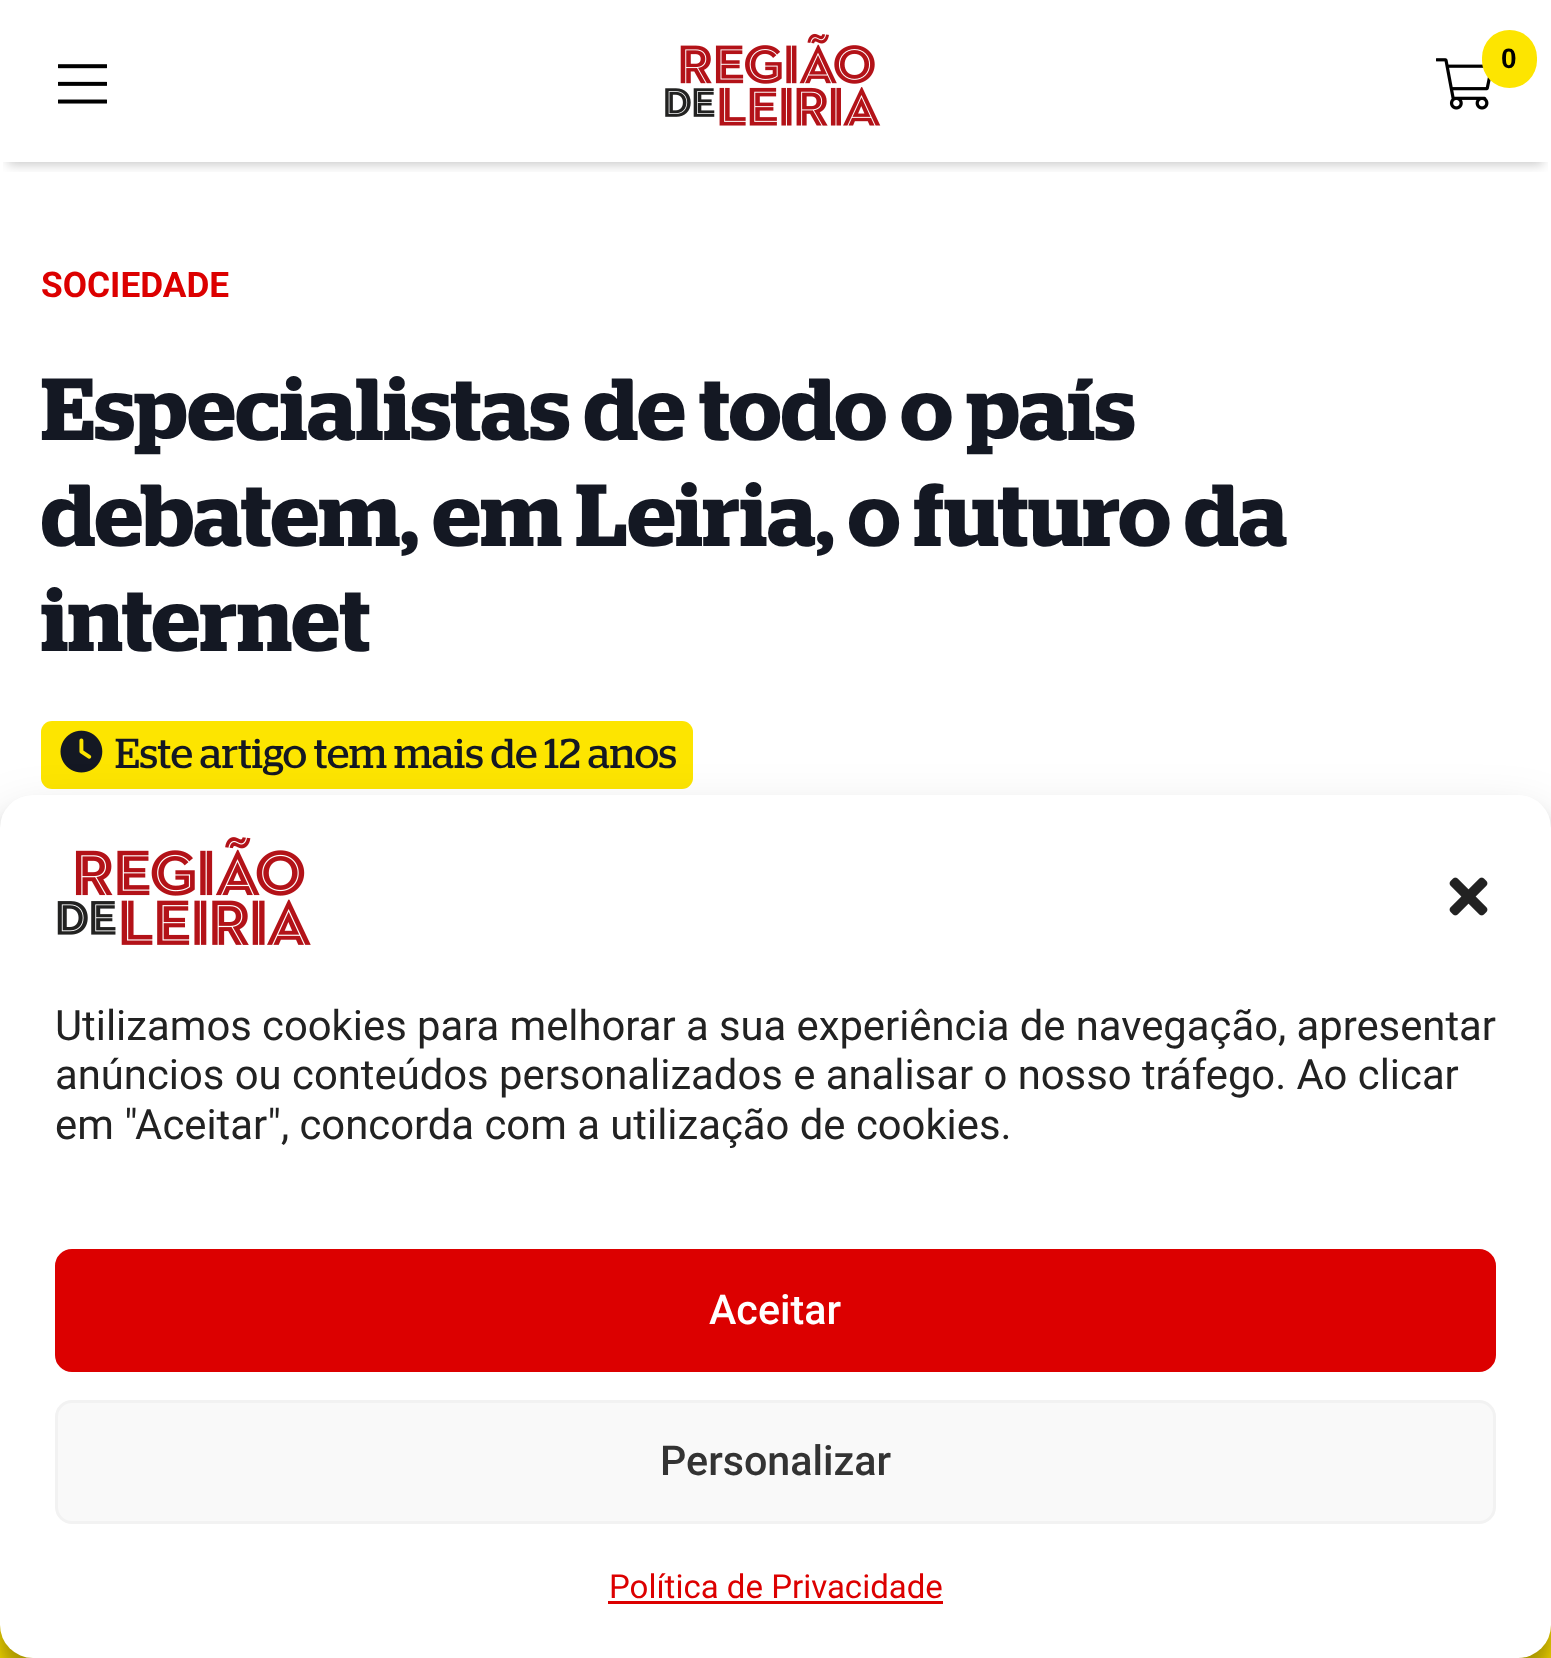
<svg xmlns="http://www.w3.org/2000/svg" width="1551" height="1658">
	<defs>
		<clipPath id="clip1"><rect x="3" y="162" width="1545" height="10" /></clipPath>
	</defs>
	<rect width="100%" height="100%" fill="#FFFFFF" />
	<g clip-path="url(#clip1)">
		<rect x="8" y="19" width="1535" height="146" fill="#000000" fill-opacity="0.2" filter="blur(5.5px)" />
	</g>
	<image x="665" y="33" width="216" height="93" href="assets/img1.png" />
	<image x="1436" y="58" width="55" height="52" href="assets/img2.png" />
	<rect x="1482" y="30" width="55" height="58" rx="27.5" fill="#FDE500" />
	<text x="1501" y="68" font-family="Liberation Sans" font-size="28" font-weight="700" fill="#000000">0</text>
	<image x="58" y="64" width="49" height="40" href="assets/img3.png" />
	<text x="41" y="297" font-family="Roboto" font-size="35.25" font-weight="700" fill="#DC0000">SOCIEDADE</text>
	<g font-family="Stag" font-size="88" font-weight="600" fill="#141823">
		<text x="41" y="440">Especialistas de todo o país</text>
		<text x="41" y="546">debatem, em Leiria, o futuro da</text>
		<text x="41" y="651">internet</text>
	</g>
	<rect x="41" y="721" width="652" height="68" rx="11" fill="#FDE500" />
	<image x="60" y="730" width="43" height="43" href="assets/img4.png" />
	<text x="115" y="768" font-family="Stag" font-size="41.8" fill="#141823">Este artigo tem mais de 12 anos</text>
	<rect x="0" y="1625" width="1551" height="33" fill="#FDE000" />
	<rect x="0" y="811" width="1551" height="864" rx="33" fill="#000000" fill-opacity="0.23" filter="blur(8px)" />
	<rect x="0" y="822" width="1551" height="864" rx="33" fill="#000000" fill-opacity="0.19" filter="blur(27.5px)" />
	<rect x="0" y="795" width="1551" height="863" rx="33" fill="#FFFFFF" />
	<image x="57" y="837" width="254" height="108" href="assets/img5.png" />
	<image x="1449" y="877" width="39" height="39" href="assets/img6.png" />
	<g font-family="Roboto" font-size="41.8" fill="#222222">
		<text x="55" y="1040" word-spacing="-0.1">Utilizamos cookies para melhorar a sua experiência de navegação, apresentar</text>
		<text x="55" y="1089">anúncios ou conteúdos personalizados e analisar o nosso tráfego. Ao clicar</text>
		<text x="55" y="1139">em "Aceitar", concorda com a utilização de cookies.</text>
	</g>
	<rect x="56.5" y="1250.5" width="1438" height="120" rx="15.5" fill="#DC0000" stroke="#DC0000" stroke-width="3" />
	<text x="709" y="1324" font-family="Roboto" font-size="41.25" font-weight="500" fill="#FFFFFF">Aceitar</text>
	<rect x="56.5" y="1401.5" width="1438" height="121" rx="15.5" fill="#F9F9F9" stroke="#F2F2F2" stroke-width="3" />
	<text x="660" y="1475" font-family="Roboto" font-size="41.25" font-weight="500" fill="#333333">Personalizar</text>
	<text x="609" y="1598" font-family="Roboto" font-size="33" fill="#DC0000">Política de Privacidade</text>
	<rect x="608" y="1601" width="335" height="3" fill="#DC0000" />
</svg>
